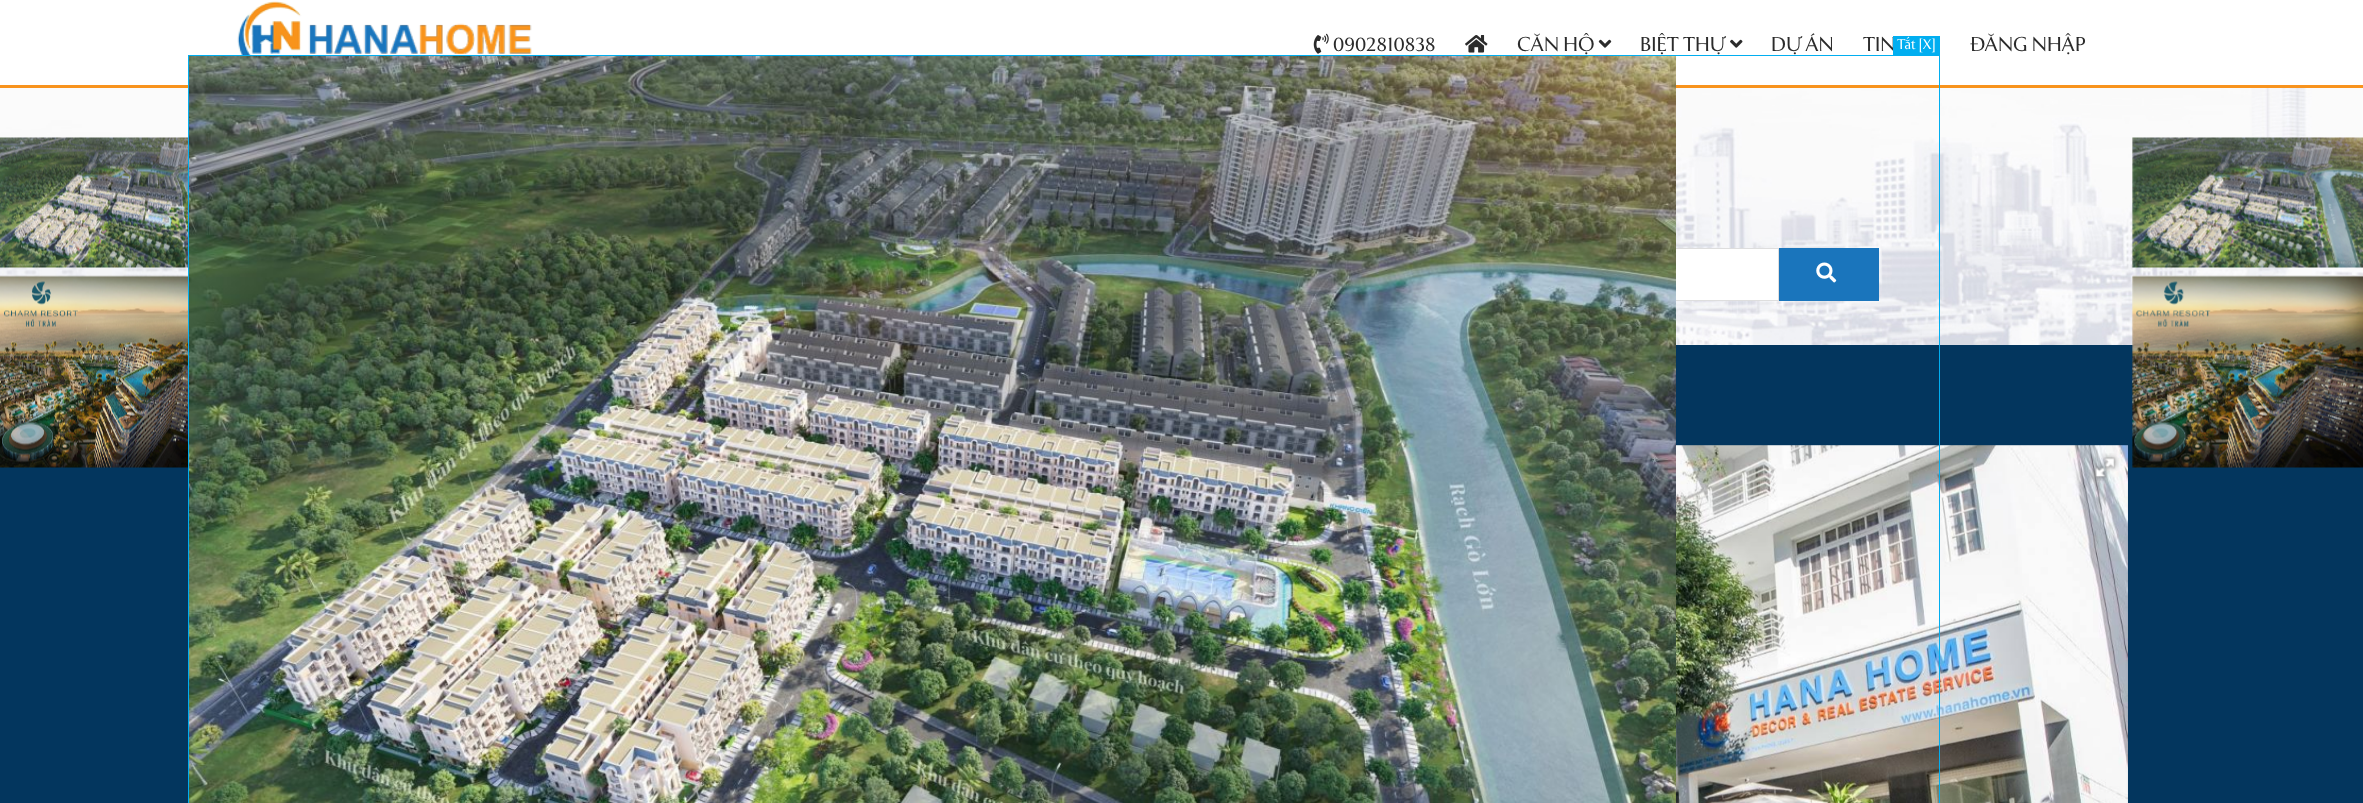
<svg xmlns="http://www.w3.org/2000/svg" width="2363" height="803">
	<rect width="100%" height="100%" fill="#FFFFFF" />
	<rect x="0" y="85" width="2363" height="3" fill="#F8931D" />
	<image x="237" y="1" width="295" height="54" href="assets/img1.png" />
	<image x="1313" y="33" width="16" height="21" href="assets/img2.png" />
	<text x="1333" y="51" font-family="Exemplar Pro" font-size="20" fill="#2B2B2B">0902810838</text>
	<image x="1465" y="35" width="23" height="18" href="assets/img3.png" />
	<text x="1517" y="51" font-family="Exemplar Pro" font-size="20" fill="#2B2B2B">CĂN HỘ</text>
	<image x="1598" y="39" width="14" height="9" href="assets/img4.png" />
	<text x="1640" y="51" font-family="Exemplar Pro" font-size="20" fill="#2B2B2B">BIỆT THỰ</text>
	<image x="1730" y="39" width="13" height="9" href="assets/img5.png" />
	<g font-family="Exemplar Pro" font-size="20" fill="#2B2B2B">
		<text x="1771" y="51">DỰ ÁN</text>
		<text x="1863" y="51">TIN</text>
		<text x="1970" y="51">ĐĂNG NHẬP</text>
	</g>
	<image x="0" y="88" width="2363" height="257" href="assets/img6.png" />
	<rect x="1676" y="249" width="102" height="51" fill="#FFFFFF" />
	<rect x="834.5" y="248.5" width="944" height="52" fill="none" stroke="#DEDEDE" />
	<rect x="1779" y="248" width="100" height="53" fill="#1A75BC" />
	<image x="1816" y="262" width="21" height="21" href="assets/img7.png" />
	<rect x="1893" y="36" width="47" height="19" fill="#01AEF0" />
	<text x="1897" y="49" font-family="Exemplar Pro" font-size="14" fill="#FFFFFF">Tắt [X]</text>
	<rect x="0" y="345" width="2363" height="458" fill="#03365E" />
	<image x="1676" y="445" width="452" height="358" href="assets/img13.png" />
	<rect x="188.5" y="55.5" width="1751" height="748" fill="none" stroke="#01AEF0" />
	<image x="189" y="56" width="1487" height="747" href="assets/img8.png" />
	<image x="0" y="137" width="188" height="131" href="assets/img9.png" />
	<image x="0" y="275" width="188" height="193" href="assets/img10.png" />
	<image x="2132" y="137" width="231" height="131" href="assets/img11.png" />
	<image x="2132" y="275" width="231" height="193" href="assets/img12.png" />
	<image x="2091" y="453" width="28" height="28" href="assets/img14.png" />
</svg>
